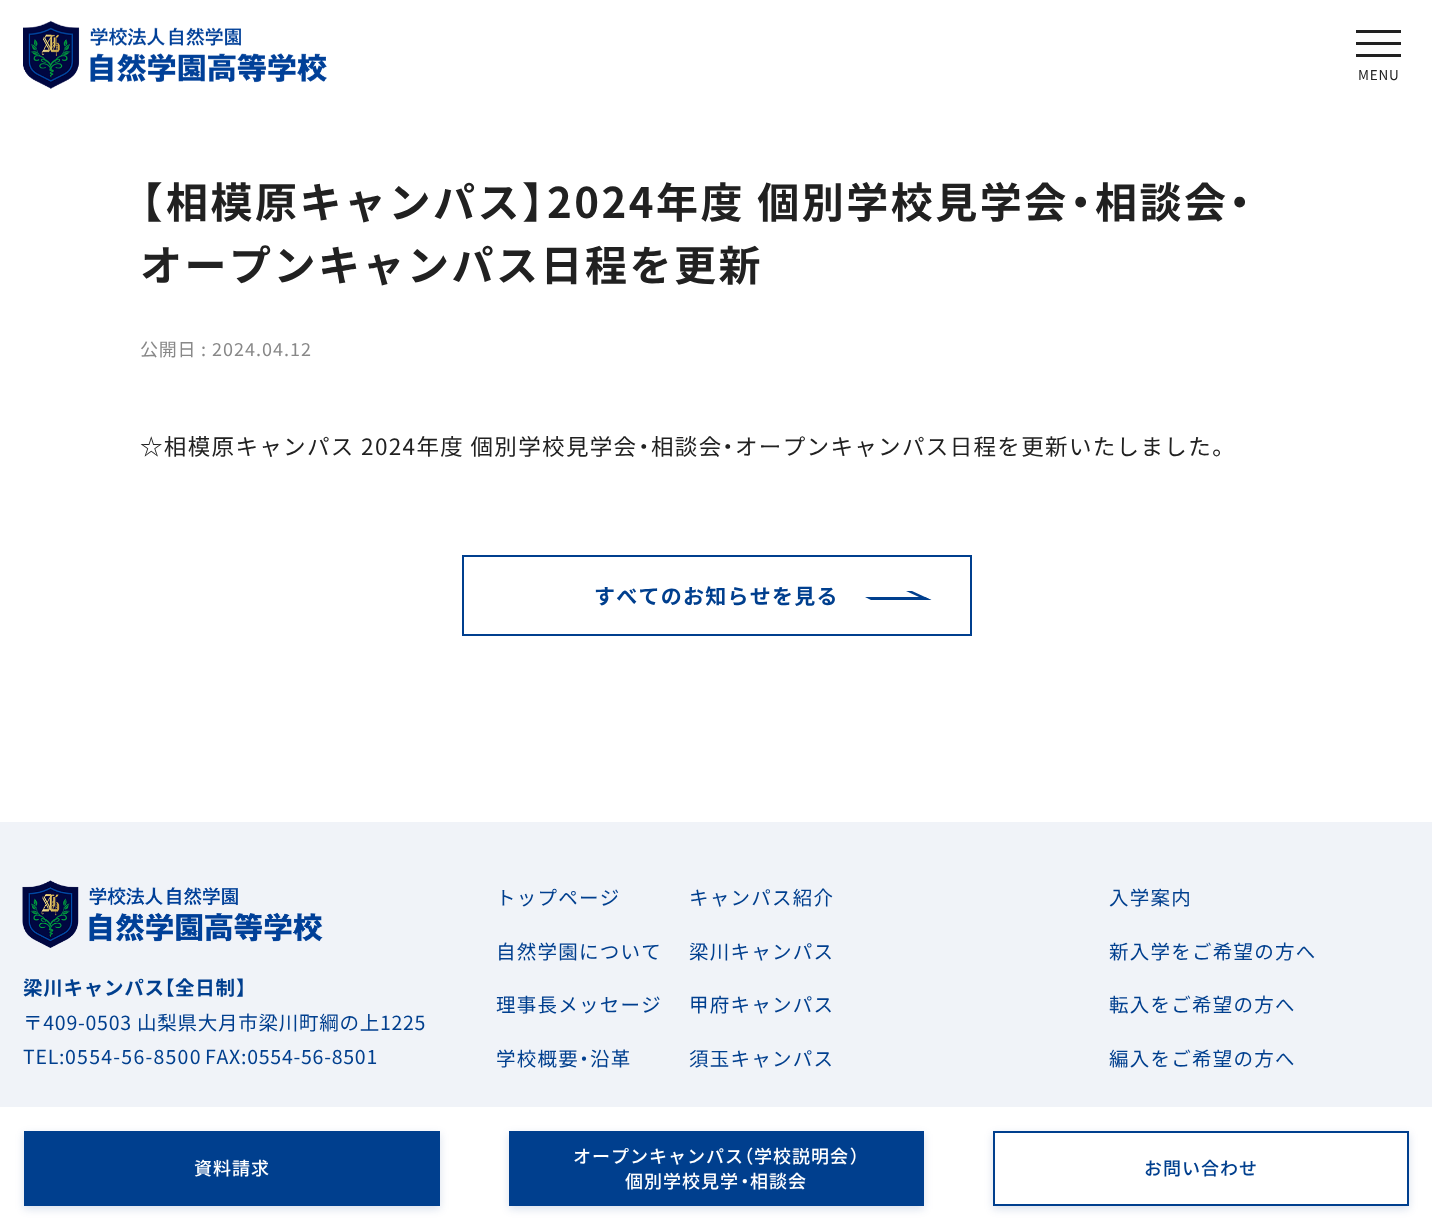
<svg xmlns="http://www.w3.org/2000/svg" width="1432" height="1230">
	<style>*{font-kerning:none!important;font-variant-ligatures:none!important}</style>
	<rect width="100%" height="100%" fill="#FFFFFF" />
	<image x="23" y="20" width="304" height="69" href="assets/img1.png" />
	<rect x="1356" y="30" width="45" height="3" fill="#212121" />
	<rect x="1356" y="54" width="45" height="3" fill="#212121" />
	<rect x="1356" y="42" width="45" height="3" fill="#212121" />
	<text x="1358" y="80" font-family="Noto Sans JP" font-size="13.5" letter-spacing="0.75" fill="#212121">MENU</text>
	<text x="140" y="218" font-family="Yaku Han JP" font-size="42" font-weight="700" letter-spacing="2.5" fill="#212121">【</text>
	<text x="166" y="218" font-family="Noto Sans JP" font-size="42" font-weight="700" letter-spacing="2.5" fill="#212121">相模原キャンパス</text>
	<text x="522" y="218" font-family="Yaku Han JP" font-size="42" font-weight="700" letter-spacing="2.5" fill="#212121">】</text>
	<text x="547" y="218" font-family="Noto Sans JP" font-size="42" font-weight="700" letter-spacing="2.5" fill="#212121">2024年度 個別学校見学会</text>
	<text x="1069" y="218" font-family="Yaku Han JP" font-size="42" font-weight="700" letter-spacing="2.5" fill="#212121">・</text>
	<text x="1095" y="218" font-family="Noto Sans JP" font-size="42" font-weight="700" letter-spacing="2.5" fill="#212121">相談会</text>
	<text x="1228" y="218" font-family="Yaku Han JP" font-size="42" font-weight="700" letter-spacing="2.5" fill="#212121">・</text>
	<text x="140" y="281" font-family="Noto Sans JP" font-size="42" font-weight="700" letter-spacing="2.5" fill="#212121">オープンキャンパス日程を更新</text>
	<text x="140" y="356" font-family="Noto Sans JP" font-size="18" letter-spacing="0.75" fill="#888888">公開日 :</text>
	<text x="212" y="356" font-family="Noto Sans JP" font-size="18" letter-spacing="1" fill="#888888">2024.04.12</text>
	<text x="140" y="455" font-family="Noto Sans JP" font-size="22.5" letter-spacing="1.35" fill="#212121">☆相模原キャンパス 2024年度 個別学校見学会</text>
	<text x="638" y="455" font-family="Yaku Han JP" font-size="22.5" letter-spacing="1.35" fill="#212121">・</text>
	<text x="651" y="455" font-family="Noto Sans JP" font-size="22.5" letter-spacing="1.35" fill="#212121">相談会</text>
	<text x="722" y="455" font-family="Yaku Han JP" font-size="22.5" letter-spacing="1.35" fill="#212121">・</text>
	<text x="735" y="455" font-family="Noto Sans JP" font-size="22.5" letter-spacing="1.35" fill="#212121">オープンキャンパス日程を更新いたしました</text>
	<text x="1212" y="455" font-family="Yaku Han JP" font-size="22.5" letter-spacing="1.35" fill="#212121">。</text>
	<rect x="463" y="556" width="508" height="79" fill="none" stroke="#003F8E" stroke-width="2" />
	<text x="594" y="604" font-family="Noto Sans JP" font-size="21" font-weight="700" letter-spacing="1.25" fill="#003F8E">すべてのお知らせを見る</text>
	<path d="M906 591H912L931.5 600H925.5Z" fill="#003F8E" />
	<path d="M865 597H925L931 600H871Z" fill="#003F8E" />
	<rect x="0" y="822" width="1432" height="285" fill="#F0F3F8" />
	<image x="22" y="880" width="301" height="68" href="assets/img2.png" />
	<text x="23" y="995" font-family="Noto Sans JP" font-size="19.5" font-weight="700" letter-spacing="0.75" fill="#003F8E">梁川キャンパス</text>
	<text x="164" y="995" font-family="Yaku Han JP" font-size="19.5" font-weight="700" letter-spacing="0.75" fill="#003F8E">【</text>
	<text x="175" y="995" font-family="Noto Sans JP" font-size="19.5" font-weight="700" letter-spacing="0.75" fill="#003F8E">全日制</text>
	<text x="236" y="995" font-family="Yaku Han JP" font-size="19.5" font-weight="700" letter-spacing="0.75" fill="#003F8E">】</text>
	<g font-family="Noto Sans JP" font-size="19.5" letter-spacing="0.75" fill="#003F8E">
		<text x="23" y="1030">〒409-0503 山梨県大月市梁川町綱の上1225</text>
		<text x="23" y="1064">TEL:</text>
	</g>
	<text x="65" y="1064" font-family="Noto Sans JP" font-size="19.5" letter-spacing="1.25" fill="#003F8E">0554-56-8500</text>
	<text x="205" y="1064" font-family="Noto Sans JP" font-size="19.5" letter-spacing="0.75" fill="#003F8E">FAX:0554-56-8501</text>
	<g font-family="Noto Sans JP" font-size="19.5" letter-spacing="1.25" fill="#003F8E">
		<text x="496" y="905">トップページ</text>
		<text x="496" y="959">自然学園について</text>
		<text x="496" y="1012">理事長メッセージ</text>
		<text x="496" y="1066">学校概要</text>
	</g>
	<text x="579" y="1066" font-family="Yaku Han JP" font-size="19.5" letter-spacing="1.25" fill="#003F8E">・</text>
	<g font-family="Noto Sans JP" font-size="19.5" letter-spacing="1.25" fill="#003F8E">
		<text x="590" y="1066">沿革</text>
		<text x="689" y="905">キャンパス紹介</text>
		<text x="689" y="959">梁川キャンパス</text>
		<text x="689" y="1012">甲府キャンパス</text>
		<text x="689" y="1066">須玉キャンパス</text>
		<text x="1109" y="905">入学案内</text>
		<text x="1109" y="959">新入学をご希望の方へ</text>
		<text x="1109" y="1012">転入をご希望の方へ</text>
		<text x="1109" y="1066">編入をご希望の方へ</text>
	</g>
	<rect x="24" y="1134" width="416" height="75" fill="#02307E" fill-opacity="0.15" filter="blur(4px)" />
	<rect x="24" y="1131" width="416" height="75" fill="#003F8E" />
	<text x="194" y="1175" font-family="Noto Sans JP" font-size="18" font-weight="500" letter-spacing="1" fill="#FFFFFF">資料請求</text>
	<rect x="509" y="1134" width="415" height="75" fill="#02307E" fill-opacity="0.15" filter="blur(4px)" />
	<rect x="509" y="1131" width="415" height="75" fill="#003F8E" />
	<text x="573" y="1163" font-family="Noto Sans JP" font-size="18" font-weight="500" letter-spacing="1" fill="#FFFFFF">オープンキャンパス</text>
	<text x="744" y="1163" font-family="Yaku Han JP" font-size="18" font-weight="500" letter-spacing="1" fill="#FFFFFF">（</text>
	<text x="754" y="1163" font-family="Noto Sans JP" font-size="18" font-weight="500" letter-spacing="1" fill="#FFFFFF">学校説明会</text>
	<text x="850" y="1163" font-family="Yaku Han JP" font-size="18" font-weight="500" letter-spacing="1" fill="#FFFFFF">）</text>
	<text x="625" y="1188" font-family="Noto Sans JP" font-size="18" font-weight="500" letter-spacing="1" fill="#FFFFFF">個別学校見学</text>
	<text x="740" y="1188" font-family="Yaku Han JP" font-size="18" font-weight="500" letter-spacing="1" fill="#FFFFFF">・</text>
	<text x="750" y="1188" font-family="Noto Sans JP" font-size="18" font-weight="500" letter-spacing="1" fill="#FFFFFF">相談会</text>
	<rect x="993" y="1134" width="416" height="75" fill="#02307E" fill-opacity="0.15" filter="blur(4px)" />
	<rect x="994" y="1132" width="414" height="73" fill="#FFFFFF" stroke="#003F8E" stroke-width="2" />
	<text x="1144" y="1175" font-family="Noto Sans JP" font-size="18" font-weight="500" letter-spacing="1" fill="#003F8E">お問い合わせ</text>
</svg>
